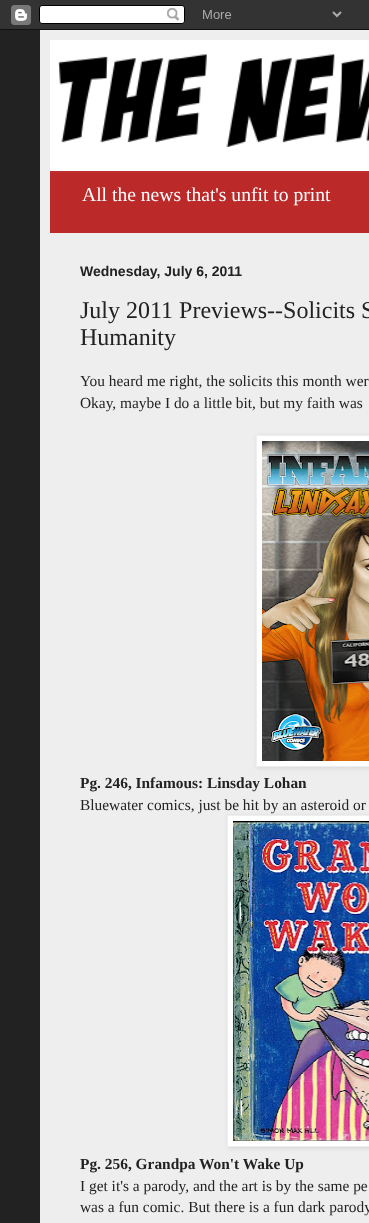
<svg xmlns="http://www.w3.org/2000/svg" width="369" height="1223">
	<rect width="100%" height="100%" fill="#222222" />
	<image x="0" y="0" width="369" height="30" href="assets/img1.png" />
	<rect x="40" y="30" width="329" height="1193" fill="#EEEEEE" />
	<rect x="50" y="171" width="319" height="62" fill="#BC2929" />
	<image x="50" y="171" width="319" height="2" href="assets/img2.png" />
	<image x="50" y="40" width="319" height="131" href="assets/img3.png" />
	<text x="82" y="201" font-family="Liberation Serif" font-size="19.6" fill="#FFFFFF">All the news that's unfit to print</text>
	<text x="80" y="276" font-family="Liberation Sans" font-size="14" font-weight="700" fill="#222222">Wednesday, July 6, 2011</text>
	<g font-family="Liberation Serif" font-size="24" fill="#222222">
		<text x="80" y="318">July 2011 Previews--Solicits S</text>
		<text x="80" y="345">Humanity</text>
	</g>
	<g font-family="Liberation Serif" font-size="15.4" fill="#222222">
		<text x="80" y="386">You heard me right, the solicits this month wer</text>
		<text x="80" y="408">Okay, maybe I do a little bit, but my faith was</text>
	</g>
	<rect x="257" y="436" width="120" height="332" fill="#000000" fill-opacity="0.1" filter="blur(2.5px)" />
	<rect x="256.5" y="435.5" width="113" height="331" fill="#FFFFFF" stroke="#EEEEEE" />
	<image x="262" y="441" width="107" height="320" href="assets/img4.png" />
	<text x="80" y="788" font-family="Liberation Serif" font-size="15.4" font-weight="700" fill="#222222">Pg. 246, Infamous: Linsday Lohan</text>
	<text x="80" y="810" font-family="Liberation Serif" font-size="15.4" fill="#222222">Bluewater comics, just be hit by an asteroid or</text>
	<rect x="228" y="816" width="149" height="332" fill="#000000" fill-opacity="0.1" filter="blur(2.5px)" />
	<rect x="227.5" y="815.5" width="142" height="331" fill="#FFFFFF" stroke="#EEEEEE" />
	<image x="233" y="821" width="136" height="320" href="assets/img5.png" />
	<text x="80" y="1169" font-family="Liberation Serif" font-size="15.4" font-weight="700" fill="#222222">Pg. 256, Grandpa Won't Wake Up</text>
	<g font-family="Liberation Serif" font-size="15.4" fill="#222222">
		<text x="80" y="1191">I get it's a parody, and the art is by the same pe</text>
		<text x="80" y="1212">was a fun comic. But there is a fun dark parody</text>
	</g>
</svg>
